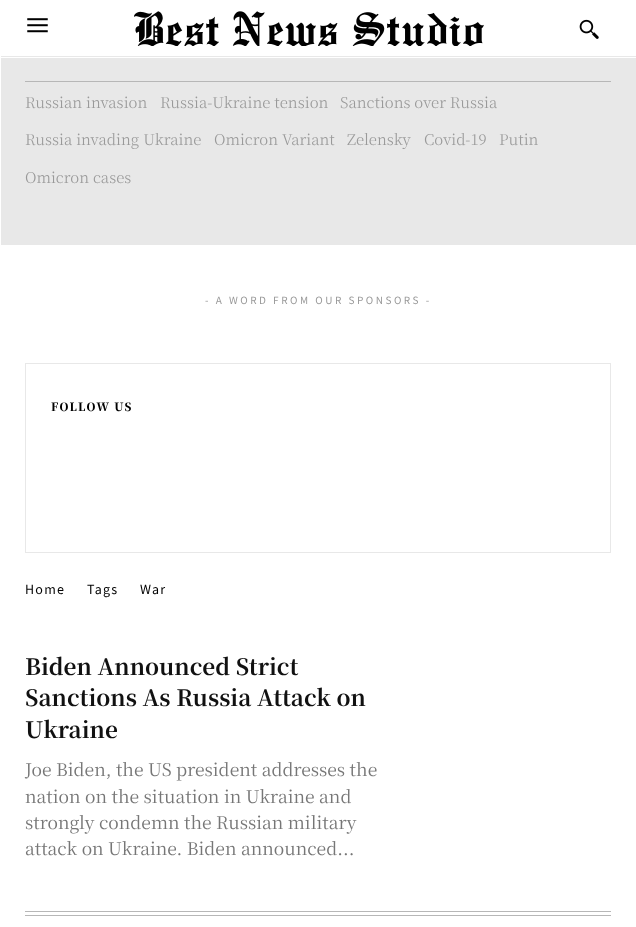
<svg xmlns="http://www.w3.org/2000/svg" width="636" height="927">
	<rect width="100%" height="100%" fill="#FFFFFF" />
	<image x="27" y="18" width="21" height="15" href="assets/img1.png" />
	<image x="134" y="11" width="350" height="35" href="assets/img2.png" />
	<image x="579" y="19" width="20" height="20" href="assets/img3.png" />
	<rect x="1" y="56" width="635" height="1" fill="#E8E8E8" />
	<rect x="1" y="58" width="635" height="187" fill="#E8E8E8" />
	<rect x="25" y="81" width="586" height="1" fill="#B7B7B7" />
	<g font-family="Noto Serif JP" font-size="15" font-weight="300" fill="#999999">
		<text x="25" y="108">Russian invasion</text>
		<text x="160" y="108">Russia-Ukraine tension</text>
		<text x="340" y="108">Sanctions over Russia</text>
		<text x="25" y="145">Russia invading Ukraine</text>
		<text x="214" y="145">Omicron Variant</text>
		<text x="347" y="145">Zelensky</text>
		<text x="424" y="145">Covid-19</text>
		<text x="499" y="145">Putin</text>
		<text x="25" y="183">Omicron cases</text>
	</g>
	<text x="205" y="304" font-family="Noto Sans JP" font-size="10" font-weight="100" letter-spacing="2.5" fill="#999999">- A WORD FROM OUR SPONSORS -</text>
	<rect x="25.5" y="363.5" width="585" height="189" fill="none" stroke="#E8E8E8" />
	<text x="51" y="411" font-family="Noto Serif JP" font-size="11.25" font-weight="900" letter-spacing="1.25" fill="#000000">FOLLOW US</text>
	<g font-family="Noto Sans JP" font-size="12.5" font-weight="100" letter-spacing="1.25" fill="#000000">
		<text x="25" y="594">Home</text>
		<text x="87" y="594">Tags</text>
		<text x="140" y="594">War</text>
	</g>
	<g font-family="Noto Serif JP" font-size="22.5" font-weight="700" fill="#111111">
		<text x="25" y="675">Biden Announced Strict</text>
		<text x="25" y="706">Sanctions As Russia Attack on</text>
		<text x="25" y="738">Ukraine</text>
	</g>
	<g font-family="Noto Serif JP" font-size="17.5" fill="#767676">
		<text x="25" y="776">Joe Biden, the US president addresses the</text>
		<text x="25" y="803">nation on the situation in Ukraine and</text>
		<text x="25" y="829">strongly condemn the Russian military</text>
		<text x="25" y="855">attack on Ukraine. Biden announced...</text>
	</g>
	<rect x="25" y="911" width="586" height="1" fill="#B7B7B7" />
	<rect x="25" y="915" width="586" height="1" fill="#B7B7B7" />
</svg>
